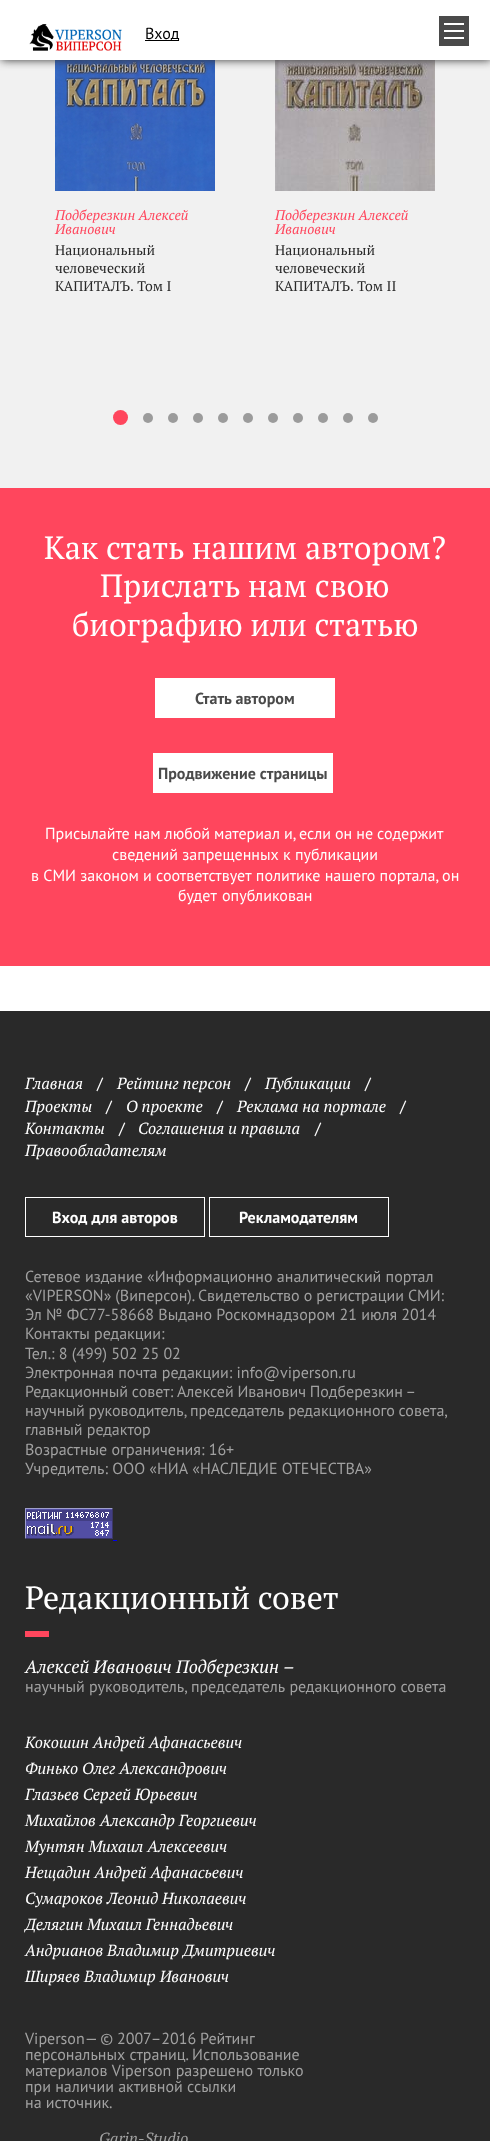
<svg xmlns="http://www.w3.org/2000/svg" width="490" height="2141">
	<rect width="100%" height="100%" fill="#FFFFFF" />
	<rect x="0" y="60" width="490" height="428" fill="#F1F1F1" />
	<image x="55" y="60" width="160" height="131" href="assets/img2.png" />
	<image x="275" y="60" width="160" height="131" href="assets/img3.png" />
	<rect x="1" y="0" width="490" height="60" fill="#333333" filter="blur(5px)" />
	<rect x="0" y="0" width="490" height="60" fill="#FFFFFF" />
	<image x="29" y="24" width="93" height="27" href="assets/img1.png" />
	<rect x="439" y="16" width="30" height="30" fill="#4A4A4A" />
	<rect x="444" y="23" width="20" height="2" fill="#FFFFFF" />
	<rect x="444" y="37" width="20" height="2" fill="#FFFFFF" />
	<rect x="444" y="30" width="20" height="2" fill="#FFFFFF" />
	<rect x="145" y="40" width="34" height="1" fill="#000000" />
	<text x="145" y="39" font-family="PT Sans" font-size="16" fill="#000000">Вход</text>
	<g font-family="PT Serif" font-size="14" font-style="italic" fill="#FF465D">
		<text x="55" y="220">Подберезкин Алексей</text>
		<text x="55" y="234">Иванович</text>
	</g>
	<g font-family="PT Serif" font-size="14" fill="#292929">
		<text x="55" y="255">Национальный</text>
		<text x="55" y="273">человеческий</text>
		<text x="55" y="291">КАПИТАЛЪ. Том I</text>
	</g>
	<g font-family="PT Serif" font-size="14" font-style="italic" fill="#FF465D">
		<text x="275" y="220">Подберезкин Алексей</text>
		<text x="275" y="234">Иванович</text>
	</g>
	<g font-family="PT Serif" font-size="14" fill="#292929">
		<text x="275" y="255">Национальный</text>
		<text x="275" y="273">человеческий</text>
		<text x="275" y="291">КАПИТАЛЪ. Том II</text>
	</g>
	<circle cx="120.5" cy="417.5" r="7.5" fill="#FF465D" />
	<circle cx="148" cy="418" r="5" fill="#9B9B9B" />
	<circle cx="173" cy="418" r="5" fill="#9B9B9B" />
	<circle cx="198" cy="418" r="5" fill="#9B9B9B" />
	<circle cx="223" cy="418" r="5" fill="#9B9B9B" />
	<circle cx="248" cy="418" r="5" fill="#9B9B9B" />
	<circle cx="273" cy="418" r="5" fill="#9B9B9B" />
	<circle cx="298" cy="418" r="5" fill="#9B9B9B" />
	<circle cx="323" cy="418" r="5" fill="#9B9B9B" />
	<circle cx="348" cy="418" r="5" fill="#9B9B9B" />
	<circle cx="373" cy="418" r="5" fill="#9B9B9B" />
	<rect x="0" y="488" width="490" height="478" fill="#FF465D" />
	<g font-family="PT Serif" font-size="32" fill="#FFFFFF">
		<text x="44" y="559">Как стать нашим автором?</text>
		<text x="100" y="597">Прислать нам свою</text>
		<text x="72" y="636">биографию или статью</text>
	</g>
	<rect x="155" y="678" width="180" height="40" fill="#FFFFFF" />
	<text x="195" y="704" font-family="PT Sans" font-size="16" font-weight="700" fill="#4A4A4A">Стать автором</text>
	<rect x="153" y="753" width="180" height="40" fill="#FFFFFF" />
	<text x="158" y="779" font-family="PT Sans" font-size="16" font-weight="700" fill="#4A4A4A">Продвижение страницы</text>
	<g font-family="PT Sans" font-size="16" fill="#FFFFFF">
		<text x="45" y="839" word-spacing="-0.25">Присылайте нам любой материал и, если он не содержит</text>
		<text x="112" y="860">сведений запрещенных к публикации</text>
		<text x="31" y="881">в СМИ законом и соответствует политике нашего портала, он</text>
		<text x="178" y="901" word-spacing="1">будет опубликован</text>
	</g>
	<rect x="0" y="1011" width="490" height="1130" fill="#292929" />
	<text x="25" y="1089" font-family="PT Serif" font-size="16" font-style="italic" fill="#FFFFFF">Главная</text>
	<text x="97" y="1089" font-family="PT Sans" font-size="16" fill="#FFFFFF">/</text>
	<text x="117" y="1089" font-family="PT Serif" font-size="16" font-style="italic" fill="#FFFFFF">Рейтинг персон</text>
	<text x="245" y="1089" font-family="PT Sans" font-size="16" fill="#FFFFFF">/</text>
	<text x="265" y="1089" font-family="PT Serif" font-size="16" font-style="italic" fill="#FFFFFF">Публикации</text>
	<text x="365" y="1089" font-family="PT Sans" font-size="16" fill="#FFFFFF">/</text>
	<text x="25" y="1112" font-family="PT Serif" font-size="16" font-style="italic" fill="#FFFFFF">Проекты</text>
	<text x="106" y="1112" font-family="PT Sans" font-size="16" fill="#FFFFFF">/</text>
	<text x="126" y="1112" font-family="PT Serif" font-size="16" font-style="italic" fill="#FFFFFF">О проекте</text>
	<text x="217" y="1112" font-family="PT Sans" font-size="16" fill="#FFFFFF">/</text>
	<text x="237" y="1112" font-family="PT Serif" font-size="16" font-style="italic" fill="#FFFFFF">Реклама на портале</text>
	<text x="400" y="1112" font-family="PT Sans" font-size="16" fill="#FFFFFF">/</text>
	<text x="25" y="1134" font-family="PT Serif" font-size="16" font-style="italic" fill="#FFFFFF">Контакты</text>
	<text x="119" y="1134" font-family="PT Sans" font-size="16" fill="#FFFFFF">/</text>
	<text x="138" y="1134" font-family="PT Serif" font-size="16" font-style="italic" fill="#FFFFFF">Соглашения и правила</text>
	<text x="315" y="1134" font-family="PT Sans" font-size="16" fill="#FFFFFF">/</text>
	<text x="25" y="1156" font-family="PT Serif" font-size="16" font-style="italic" fill="#FFFFFF">Правообладателям</text>
	<rect x="25.5" y="1197.5" width="179" height="39" fill="none" stroke="#FFFFFF" />
	<text x="52" y="1223" font-family="PT Sans" font-size="16" font-weight="700" fill="#FFFFFF">Вход для авторов</text>
	<rect x="209.5" y="1197.5" width="179" height="39" fill="none" stroke="#FFFFFF" />
	<text x="239" y="1223" font-family="PT Sans" font-size="16" font-weight="700" fill="#FFFFFF">Рекламодателям</text>
	<g font-family="PT Sans" font-size="16" fill="#A1A1A1">
		<text x="25" y="1282">Сетевое издание «Информационно аналитический портал</text>
		<text x="25" y="1301" word-spacing="-0.25">«VIPERSON» (Виперсон). Свидетельство о регистрации СМИ:</text>
		<text x="25" y="1320">Эл № ФС77-58668 Выдано Роскомнадзором 21 июля 2014</text>
		<text x="25" y="1339">Контакты редакции:</text>
		<text x="25" y="1359">Тел.: 8 (499) 502 25 02</text>
		<text x="25" y="1378">Электронная почта редакции: info@viperson.ru</text>
		<text x="25" y="1397" word-spacing="-0.5">Редакционный совет: Алексей Иванович Подберезкин –</text>
		<text x="25" y="1416" word-spacing="-0.5">научный руководитель, председатель редакционного совета,</text>
		<text x="25" y="1435">главный редактор</text>
		<text x="25" y="1455">Возрастные ограничения: 16+</text>
		<text x="25" y="1474">Учредитель: ООО «НИА «НАСЛЕДИЕ ОТЕЧЕСТВА»</text>
	</g>
	<image x="25" y="1508" width="88" height="31" href="assets/img4.png" />
	<rect x="113" y="1540" width="4" height="1" fill="#0000EE" />
	<text x="25" y="1609" font-family="PT Serif" font-size="32" fill="#FFFFFF">Редакционный совет</text>
	<rect x="25" y="1631" width="24" height="6" fill="#FF465D" />
	<text x="25" y="1673" font-family="PT Serif" font-size="18" font-style="italic" fill="#FFFFFF">Алексей Иванович Подберезкин –</text>
	<text x="25" y="1692" font-family="PT Sans" font-size="16" fill="#A1A1A1">научный руководитель, председатель редакционного совета</text>
	<g font-family="PT Serif" font-size="16" font-style="italic" fill="#FFFFFF">
		<text x="25" y="1748">Кокошин Андрей Афанасьевич</text>
		<text x="25" y="1774">Финько Олег Александрович</text>
		<text x="25" y="1800">Глазьев Сергей Юрьевич</text>
		<text x="25" y="1826">Михайлов Александр Георгиевич</text>
		<text x="25" y="1852">Мунтян Михаил Алексеевич</text>
		<text x="25" y="1878">Нещадин Андрей Афанасьевич</text>
		<text x="25" y="1904">Сумароков Леонид Николаевич</text>
		<text x="25" y="1930">Делягин Михаил Геннадьевич</text>
		<text x="25" y="1956">Андрианов Владимир Дмитриевич</text>
		<text x="25" y="1982">Ширяев Владимир Иванович</text>
	</g>
	<g font-family="PT Sans" font-size="16" fill="#A1A1A1">
		<text x="25" y="2044" word-spacing="-0.5">Viperson— © 2007–2016 Рейтинг</text>
		<text x="25" y="2060">персональных страниц. Использование</text>
		<text x="25" y="2076">материалов Viperson разрешено только</text>
		<text x="25" y="2092">при наличии активной ссылки</text>
		<text x="25" y="2108">на источник.</text>
	</g>
	<text x="99" y="2144" font-family="PT Serif" font-size="16" font-style="italic" fill="#A1A1A1">Garin-Studio</text>
</svg>
